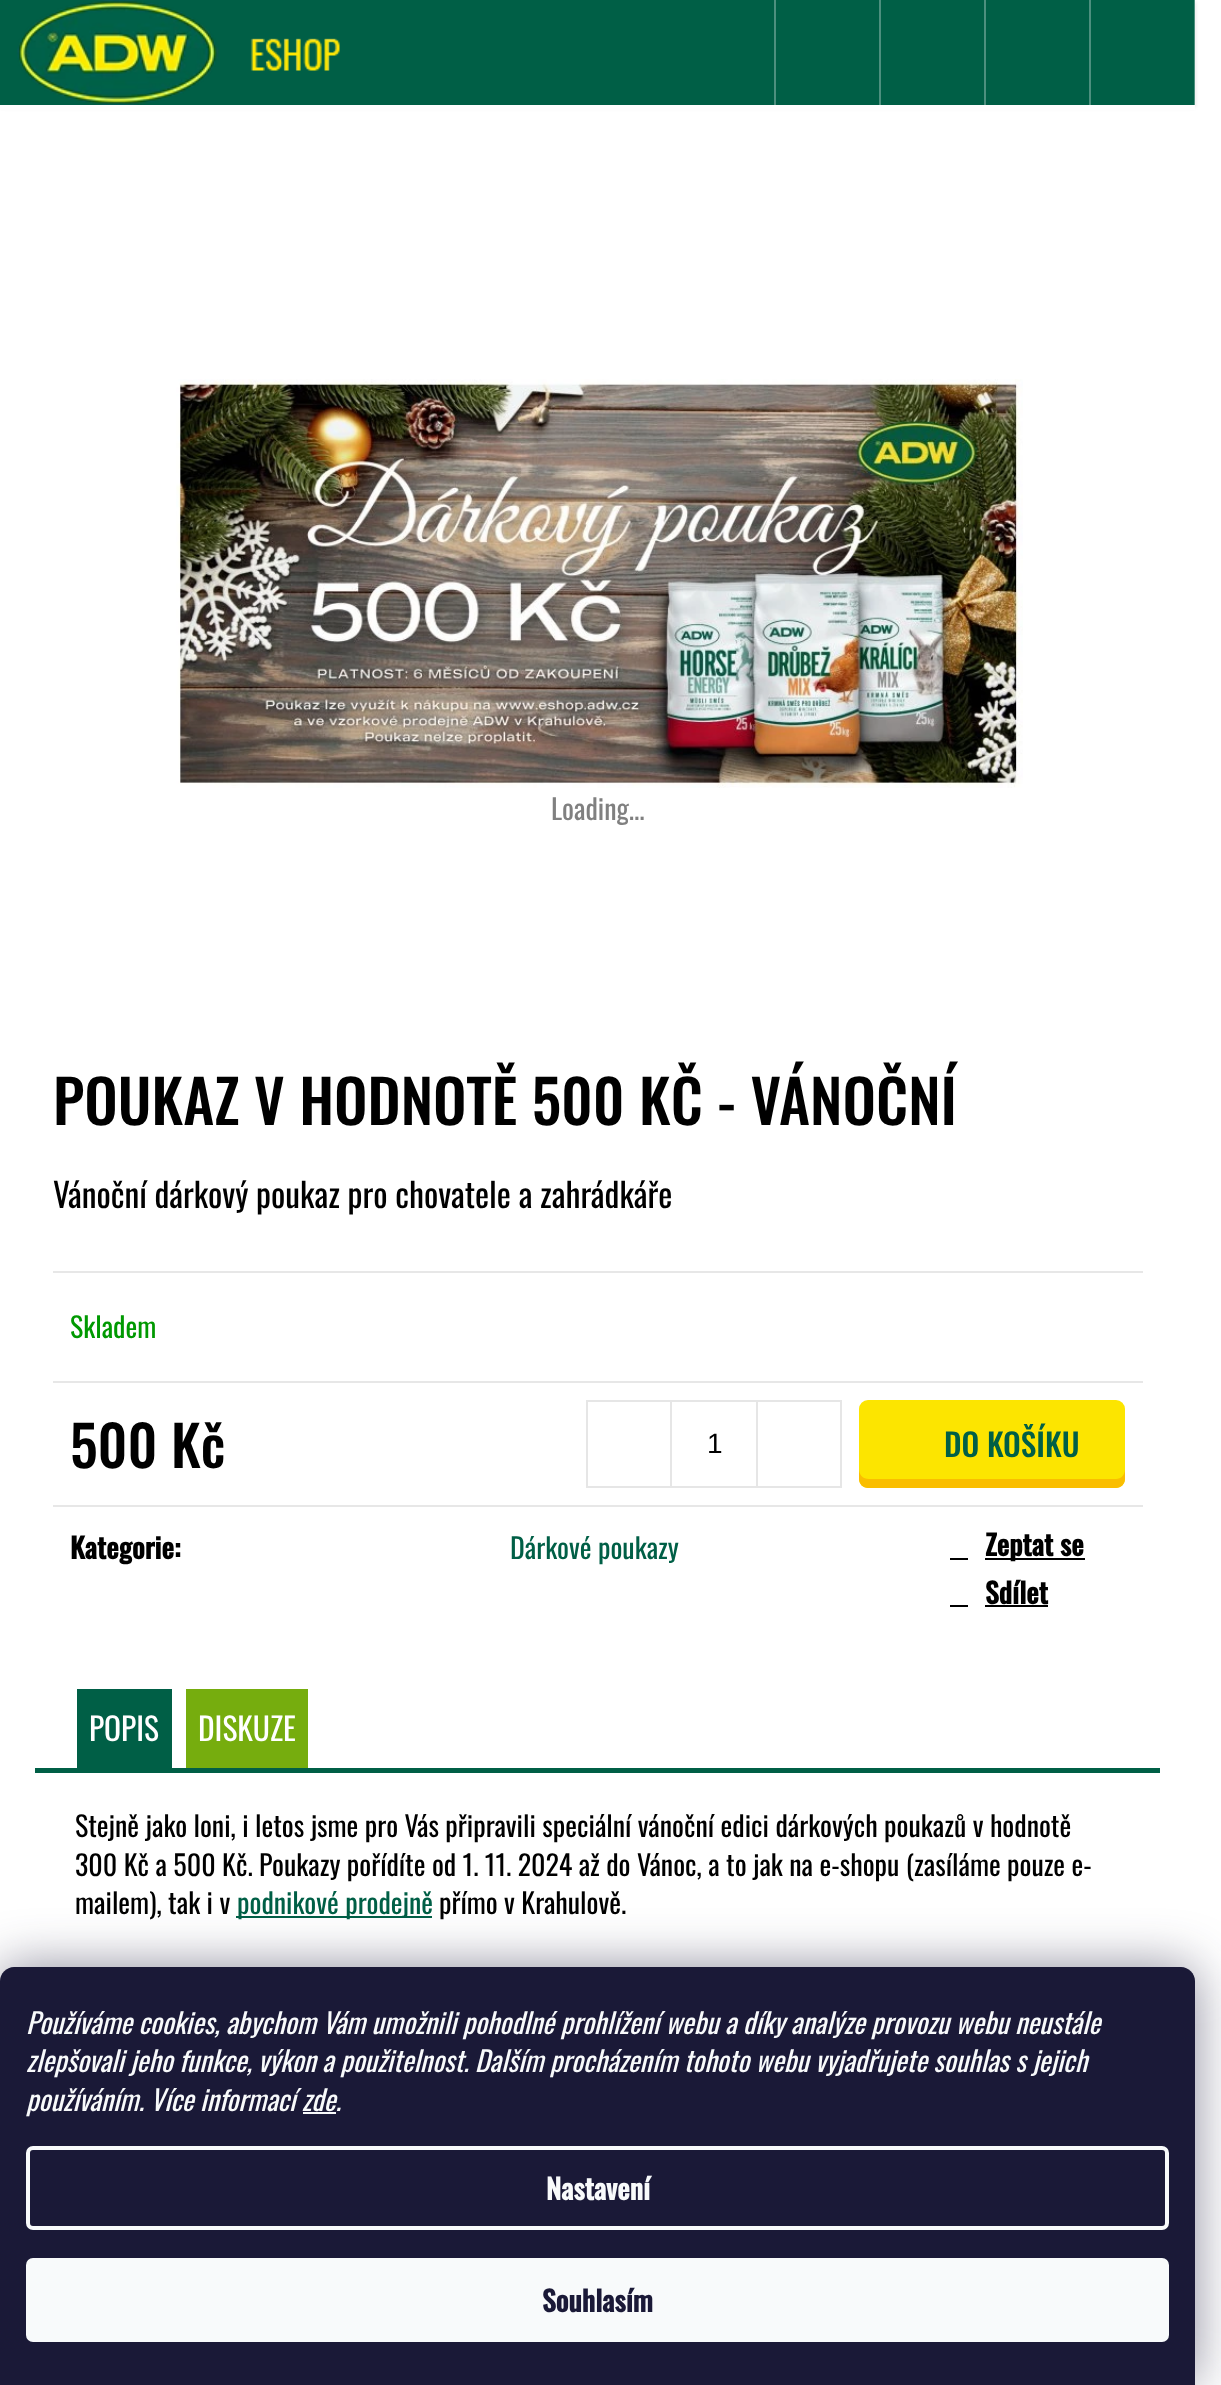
<svg xmlns="http://www.w3.org/2000/svg" width="1221" height="2385">
	<rect width="100%" height="100%" fill="#FFFFFF" />
	<rect x="0" y="2" width="1195" height="105" fill="#000000" fill-opacity="0.16" filter="blur(2px)" />
	<rect x="0" y="0" width="1195" height="105" fill="#005F46" />
	<image x="17" y="0" width="323" height="105" href="assets/img1.png" />
	<rect x="1194" y="0" width="2" height="105" fill="#FFFFFF" fill-opacity="0.3" />
	<rect x="774" y="0" width="2" height="105" fill="#4D8F7E" />
	<rect x="879" y="0" width="2" height="105" fill="#4D8F7E" />
	<rect x="984" y="0" width="2" height="105" fill="#4D8F7E" />
	<rect x="1089" y="0" width="2" height="105" fill="#4D8F7E" />
	<rect x="0" y="105" width="1195" height="5" fill="#FFFFFF" />
	<image x="176" y="379" width="847" height="409" href="assets/img2.png" />
	<text x="551" y="820" font-family="Oswald" font-size="28" fill="#808080">Loading...</text>
	<text x="53" y="1125" font-family="Oswald" font-size="59.5" font-weight="500" fill="#000000">POUKAZ V HODNOTĚ 500 KČ - VÁNOČNÍ</text>
	<text x="53" y="1208" font-family="Oswald" font-size="33.6" fill="#000000">Vánoční dárkový poukaz pro chovatele a zahrádkáře</text>
	<rect x="53" y="1271" width="1090" height="2" fill="#E7E7E7" />
	<rect x="53" y="1381" width="1090" height="2" fill="#E7E7E7" />
	<text x="70" y="1338" font-family="Oswald" font-size="28" fill="#009901">Skladem</text>
	<rect x="53" y="1505" width="1090" height="2" fill="#E7E7E7" />
	<text x="70" y="1468" font-family="Oswald" font-size="56" font-weight="500" fill="#000000">500 Kč</text>
	<rect x="587" y="1401" width="254" height="86" fill="none" stroke="#E6E6E6" stroke-width="2" />
	<rect x="670" y="1402" width="2" height="84" fill="#E6E6E6" />
	<text x="707" y="1453" font-family="Liberation Sans" font-size="28" fill="#000000">1</text>
	<rect x="756" y="1402" width="2" height="84" fill="#E6E6E6" />
	<rect x="859" y="1400" width="266" height="88" rx="9" fill="#FCE500" />
	<path d="M859 1469V1479C859 1484 863 1488 868 1488H1116C1121 1488 1125 1484 1125 1479V1469C1125 1475 1121 1479 1116 1479H869C863 1479 859 1475 859 1469Z" fill="#FABE00" />
	<text x="944" y="1457" font-family="Oswald" font-size="31.5" font-weight="500" fill="#005F46">DO KOŠÍKU</text>
	<text x="70" y="1559" font-family="Oswald" font-size="28" font-weight="700" fill="#000000">Kategorie:</text>
	<text x="510" y="1559" font-family="Oswald" font-size="28" fill="#005F46">Dárkové poukazy</text>
	<rect x="950" y="1558" width="18" height="2" fill="#000000" />
	<rect x="985" y="1558" width="100" height="2" fill="#000000" />
	<g font-family="Oswald" font-size="28" font-weight="700" fill="#000000">
		<text x="985" y="1556">Zeptat se</text>
		<text x="985" y="1604">Sdílet</text>
	</g>
	<rect x="985" y="1605" width="63" height="2" fill="#000000" />
	<rect x="950" y="1605" width="18" height="2" fill="#000000" />
	<rect x="35" y="1768" width="1125" height="5" fill="#005F46" />
	<rect x="77" y="1689" width="95" height="79" fill="#005F46" />
	<text x="89" y="1741" font-family="Oswald" font-size="31.5" fill="#FFFFFF">POPIS</text>
	<rect x="186" y="1689" width="122" height="79" fill="#76AD0E" />
	<text x="198" y="1741" font-family="Oswald" font-size="31.5" fill="#FFFFFF">DISKUZE</text>
	<g font-family="Oswald" font-size="28" fill="#000000">
		<text x="75" y="1837">Stejně jako loni, i letos jsme pro Vás připravili speciální vánoční edici dárkových poukazů v hodnotě</text>
		<text x="75" y="1876">300 Kč a 500 Kč. Poukazy pořídíte od 1. 11. 2024 až do Vánoc, a to jak na e-shopu (zasíláme pouze e-</text>
		<text x="75" y="1914">mailem), tak i v</text>
	</g>
	<rect x="236" y="1916" width="196" height="2" fill="#005F46" />
	<text x="237" y="1914" font-family="Oswald" font-size="28" fill="#005F46">podnikové prodejně</text>
	<text x="439" y="1914" font-family="Oswald" font-size="28" fill="#000000">přímo v Krahulově.</text>
	<rect x="0" y="1967" width="1195" height="418" rx="14" fill="#1B1939" fill-opacity="0.5" filter="blur(26px)" />
	<path d="M14 1967H1181C1188.5 1967 1195 1973.5 1195 1981V2385H0V1981C0 1973.5 6.5 1967 14 1967Z" fill="#1A1937" />
	<g font-family="Oswald" font-size="28" font-style="italic" fill="#F8FAFB">
		<text x="26" y="2034">Používáme cookies, abychom Vám umožnili pohodlné prohlížení webu a díky analýze provozu webu neustále</text>
		<text x="26" y="2072">zlepšovali jeho funkce, výkon a použitelnost. Dalším procházením tohoto webu vyjadřujete souhlas s jejich</text>
		<text x="26" y="2111">používáním. Více informací zde.</text>
	</g>
	<rect x="303" y="2112" width="33" height="2" fill="#F8FAFB" />
	<rect x="28" y="2148" width="1139" height="80" rx="5" fill="none" stroke="#F8FAFB" stroke-width="4" />
	<text x="546" y="2200" font-family="Oswald" font-size="28" font-weight="700" fill="#F8FAFB">Nastavení</text>
	<rect x="26" y="2258" width="1143" height="84" rx="7" fill="#F8FAFB" />
	<text x="542" y="2312" font-family="Oswald" font-size="28" font-weight="700" fill="#1A1937">Souhlasím</text>
</svg>
